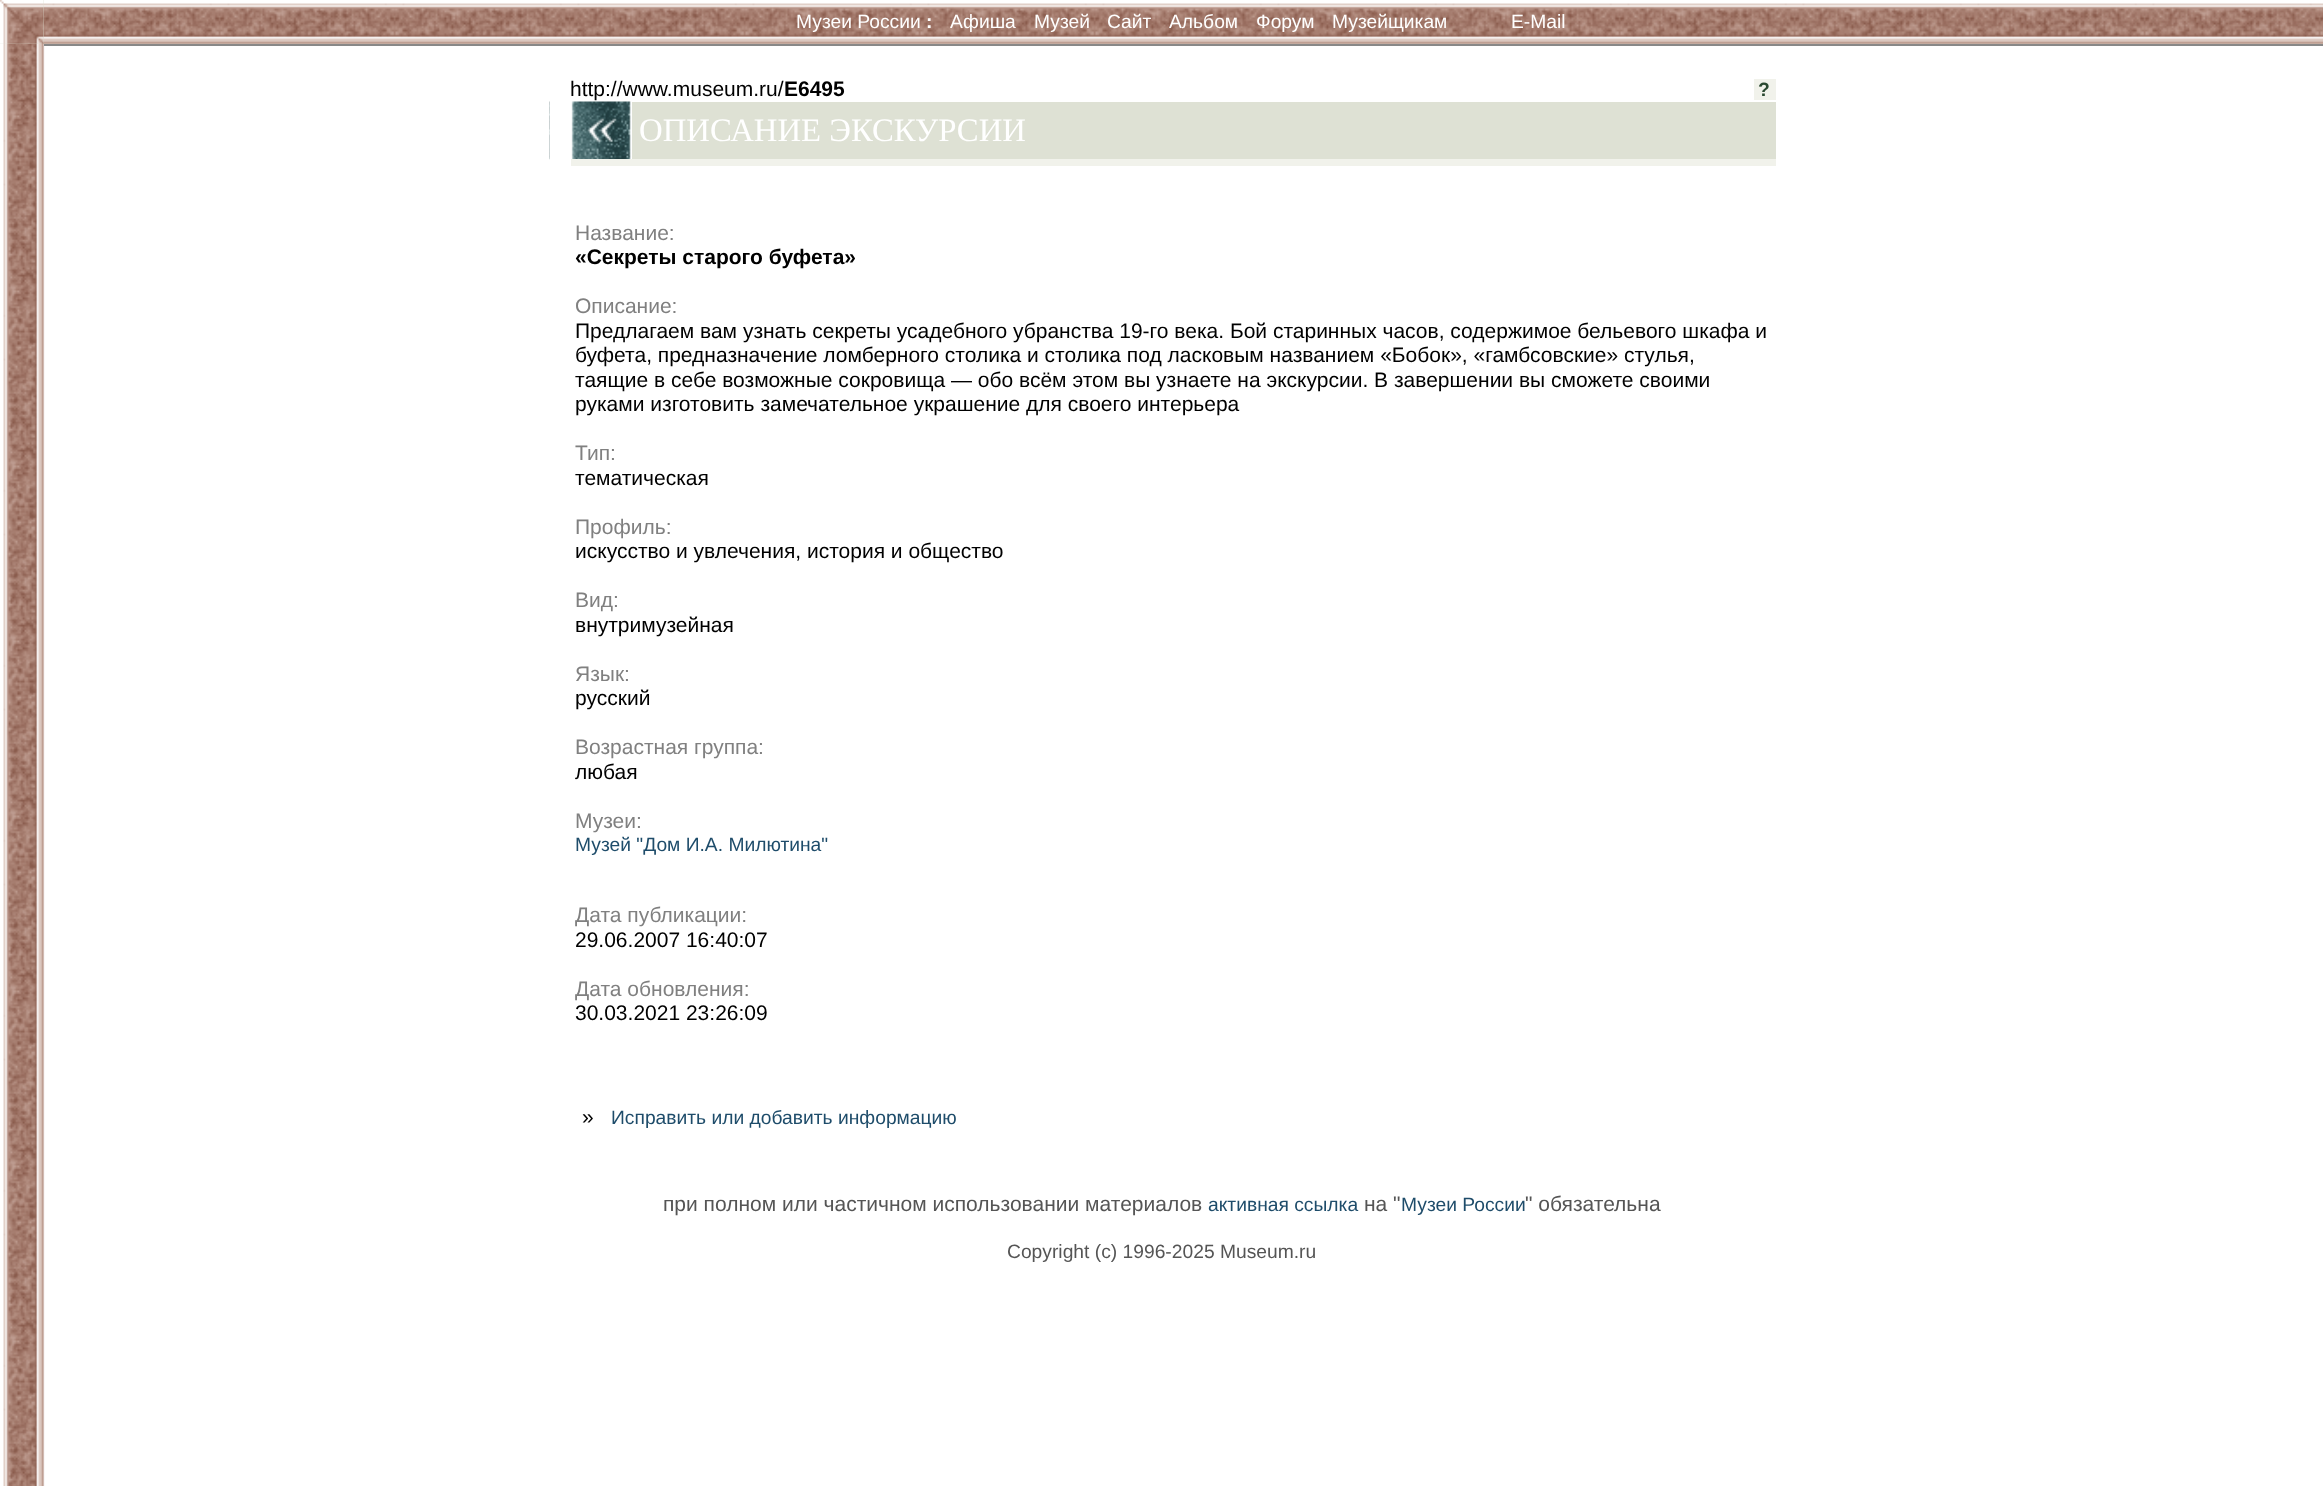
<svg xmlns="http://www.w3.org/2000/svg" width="2323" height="1486">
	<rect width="100%" height="100%" fill="#FFFFFF" />
	<image x="3" y="0" width="42" height="1486" href="assets/img1.png" />
	<image x="0" y="0" width="44" height="44" href="assets/img2.png" />
	<image x="43" y="0" width="2280" height="44" href="assets/img3.png" />
	<text x="796" y="28" font-family="Liberation Sans" font-size="19.25" fill="#FFFFFF">Музеи России</text>
	<text x="926" y="28" font-family="Liberation Sans" font-size="19.25" font-weight="700" fill="#FFFFFF">:</text>
	<g font-family="Liberation Sans" font-size="19.25" fill="#FFFFFF">
		<text x="950" y="28">Афиша</text>
		<text x="1034" y="28">Музей</text>
		<text x="1107" y="28">Сайт</text>
		<text x="1169" y="28">Альбом</text>
		<text x="1256" y="28">Форум</text>
		<text x="1332" y="28">Музейщикам</text>
		<text x="1511" y="28">E-Mail</text>
	</g>
	<rect x="44" y="44" width="2279" height="2" fill="#888888" />
	<text x="570" y="96" font-family="Liberation Sans" font-size="21" fill="#000000">http://www.museum.ru/</text>
	<text x="784" y="96" font-family="Liberation Sans" font-size="21" font-weight="700" fill="#000000">E6495</text>
	<rect x="1754" y="79" width="22" height="21" fill="#F1F2EB" />
	<text x="1758" y="96" font-family="Liberation Sans" font-size="19.25" font-weight="700" fill="#2A4931">?</text>
	<image x="549" y="101" width="82" height="59" href="assets/img4.png" />
	<rect x="632" y="102" width="1144" height="57" fill="#DEE1D4" />
	<text x="639" y="141" font-family="Liberation Serif" font-size="32.75" fill="#FFFFFF">ОПИСАНИЕ ЭКСКУРСИИ</text>
	<rect x="571" y="159" width="1205" height="7" fill="#F1F2EB" />
	<text x="575" y="240" font-family="Liberation Sans" font-size="21" fill="#808080">Название:</text>
	<text x="575" y="264" font-family="Liberation Sans" font-size="21" font-weight="700" fill="#000000">«Секреты старого буфета»</text>
	<text x="575" y="313" font-family="Liberation Sans" font-size="21" fill="#808080">Описание:</text>
	<g font-family="Liberation Sans" font-size="21" fill="#000000">
		<text x="575" y="338">Предлагаем вам узнать секреты усадебного убранства 19-го века. Бой старинных часов, содержимое бельевого шкафа и</text>
		<text x="575" y="362">буфета, предназначение ломберного столика и столика под ласковым названием «Бобок», «гамбсовские» стулья,</text>
		<text x="575" y="387">таящие в себе возможные сокровища — обо всём этом вы узнаете на экскурсии. В завершении вы сможете своими</text>
		<text x="575" y="411">руками изготовить замечательное украшение для своего интерьера</text>
	</g>
	<text x="575" y="460" font-family="Liberation Sans" font-size="21" fill="#808080">Тип:</text>
	<text x="575" y="485" font-family="Liberation Sans" font-size="21" fill="#000000">тематическая</text>
	<text x="575" y="534" font-family="Liberation Sans" font-size="21" fill="#808080">Профиль:</text>
	<text x="575" y="558" font-family="Liberation Sans" font-size="21" fill="#000000">искусство и увлечения, история и общество</text>
	<text x="575" y="607" font-family="Liberation Sans" font-size="21" fill="#808080">Вид:</text>
	<text x="575" y="632" font-family="Liberation Sans" font-size="21" fill="#000000">внутримузейная</text>
	<text x="575" y="681" font-family="Liberation Sans" font-size="21" fill="#808080">Язык:</text>
	<text x="575" y="705" font-family="Liberation Sans" font-size="21" fill="#000000">русский</text>
	<text x="575" y="754" font-family="Liberation Sans" font-size="21" fill="#808080">Возрастная группа:</text>
	<text x="575" y="779" font-family="Liberation Sans" font-size="21" fill="#000000">любая</text>
	<text x="575" y="828" font-family="Liberation Sans" font-size="21" fill="#808080">Музеи:</text>
	<text x="575" y="851" font-family="Liberation Sans" font-size="19.25" fill="#1E4C6A">Музей "Дом И.А. Милютина"</text>
	<text x="575" y="922" font-family="Liberation Sans" font-size="21" fill="#808080">Дата публикации:</text>
	<text x="575" y="947" font-family="Liberation Sans" font-size="21" fill="#000000">29.06.2007 16:40:07</text>
	<text x="575" y="996" font-family="Liberation Sans" font-size="21" fill="#808080">Дата обновления:</text>
	<g font-family="Liberation Sans" font-size="21" fill="#000000">
		<text x="575" y="1020">30.03.2021 23:26:09</text>
		<text x="582" y="1124">»</text>
	</g>
	<text x="611" y="1124" font-family="Liberation Sans" font-size="19.25" fill="#1E4C6A">Исправить или добавить информацию</text>
	<text x="663" y="1211" font-family="Liberation Sans" font-size="21" fill="#555555">при полном или частичном использовании материалов</text>
	<text x="1208" y="1211" font-family="Liberation Sans" font-size="19.25" fill="#1E4C6A">активная ссылка</text>
	<text x="1364" y="1211" font-family="Liberation Sans" font-size="21" fill="#555555">на "</text>
	<text x="1401" y="1211" font-family="Liberation Sans" font-size="19.25" fill="#1E4C6A">Музеи России</text>
	<text x="1525" y="1211" font-family="Liberation Sans" font-size="21" fill="#555555">" обязательна</text>
	<text x="1007" y="1258" font-family="Liberation Sans" font-size="19.25" fill="#555555">Copyright (c) 1996-2025 Museum.ru</text>
</svg>
